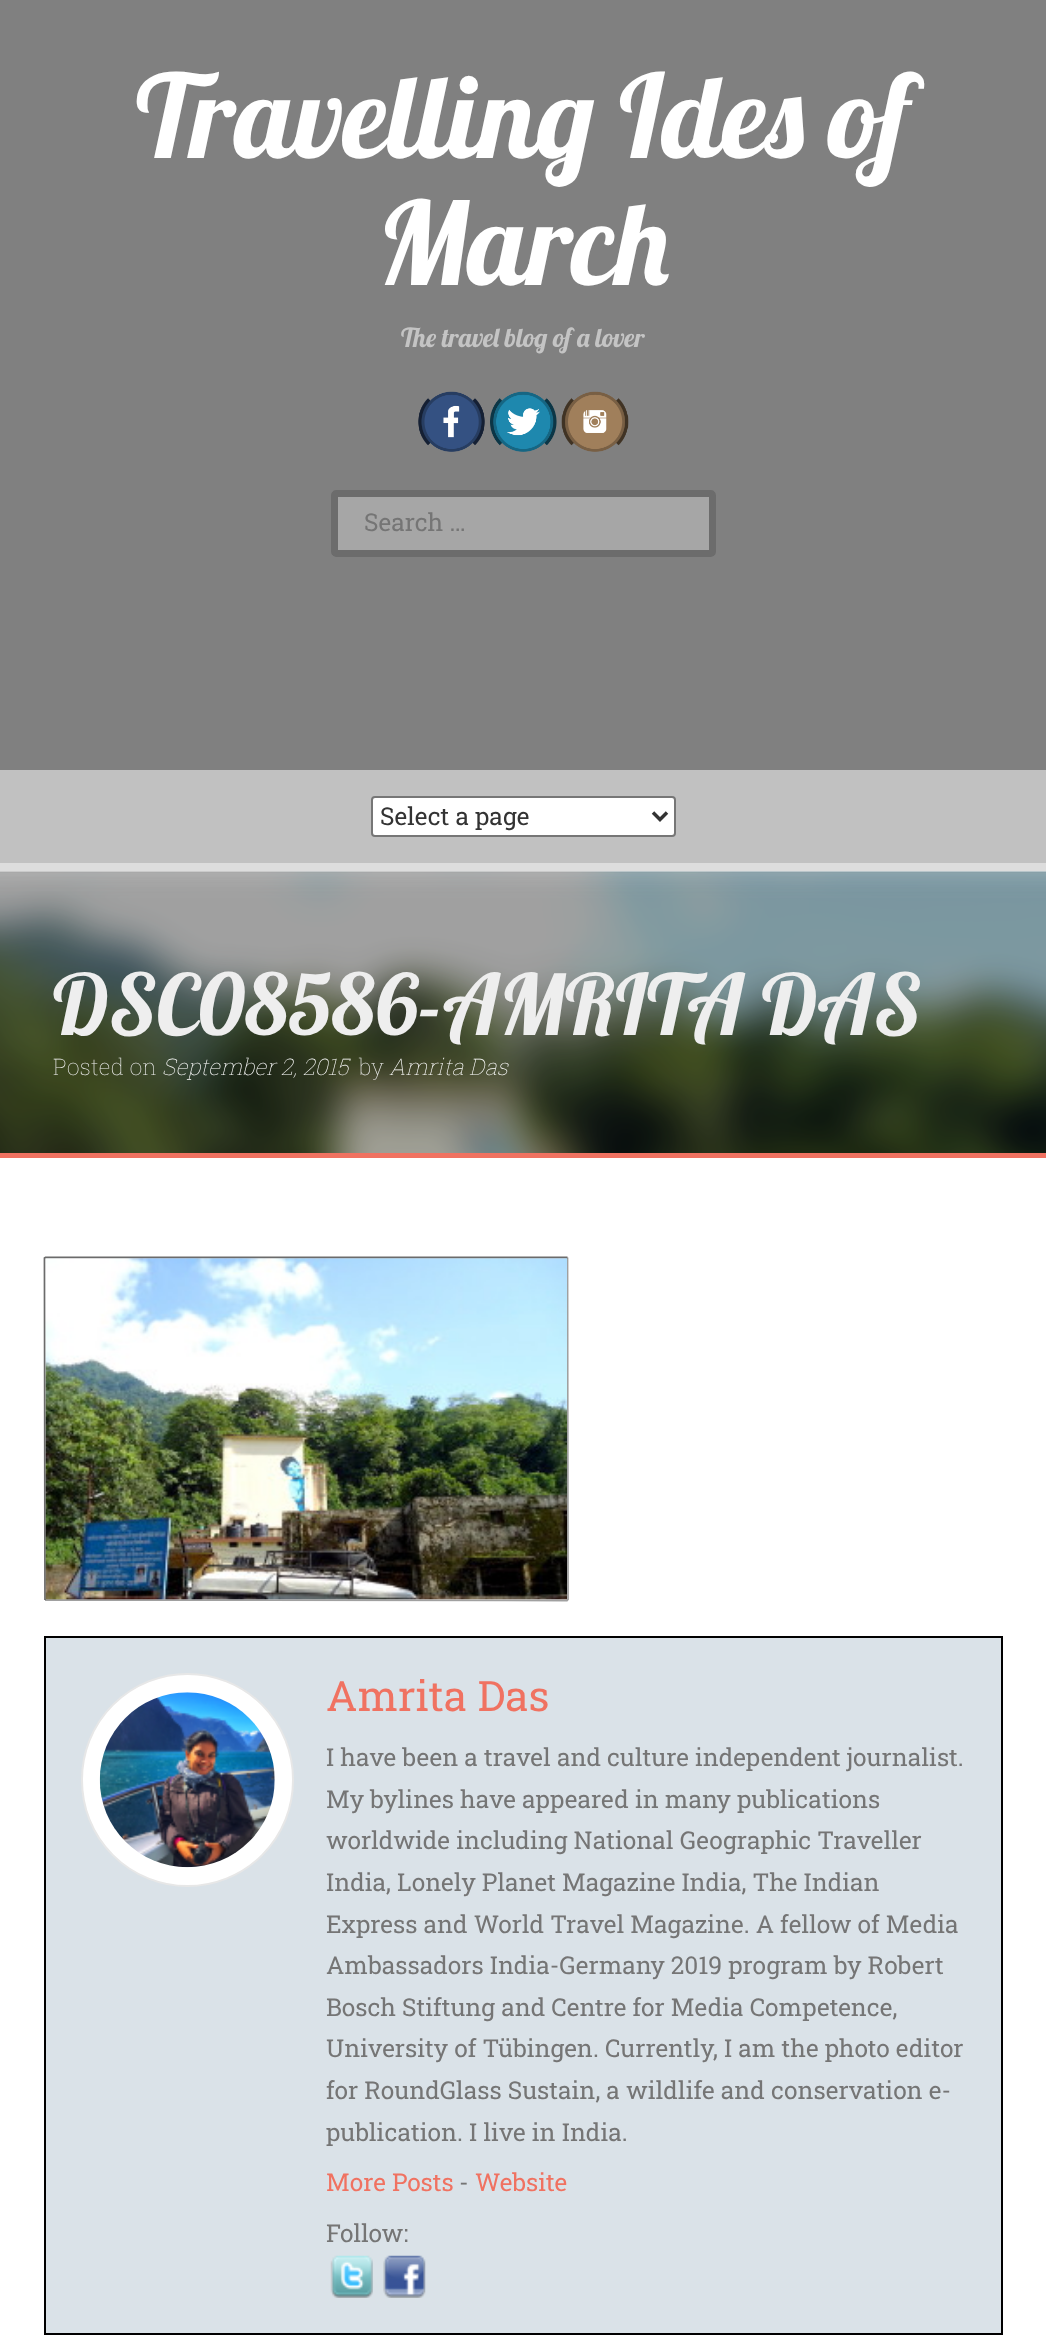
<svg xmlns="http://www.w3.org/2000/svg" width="1046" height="2346">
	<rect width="100%" height="100%" fill="#FFFFFF" />
	<rect x="0" y="0" width="1046" height="770" fill="#808080" />
	<rect x="0" y="770" width="1046" height="93" fill="#C1C1C1" />
	<g font-family="Lobster" font-size="115.5" fill="#FFFFFF">
		<text x="136" y="158">Travelling Ides of</text>
		<text x="377" y="285">March</text>
	</g>
	<text x="401" y="347" font-family="Lobster" font-size="26.25" fill="#C4C4C4">The travel blog of a lover</text>
	<image x="418" y="391" width="67" height="61" href="assets/img1.png" />
	<image x="490" y="391" width="67" height="61" href="assets/img2.png" />
	<image x="561" y="391" width="68" height="61" href="assets/img3.png" />
	<rect x="331" y="490" width="385" height="67" rx="5" fill="#A6A6A6" />
	<rect x="334.5" y="493.5" width="378" height="60" rx="1.5" fill="none" stroke="#000000" stroke-opacity="0.35" stroke-width="7" />
	<text x="364" y="531" font-family="Roboto Slab" font-size="24.5" fill="#757575">Search …</text>
	<rect x="0" y="863" width="1046" height="10" fill="#DDDDDD" />
	<rect x="372" y="797" width="303" height="39" rx="3" fill="#FFFFFF" stroke="#767676" stroke-width="2" />
	<path d="M653 812.5L660 819.5L667 812.5" fill="none" stroke="#333333" stroke-width="3.5" />
	<text x="380" y="825" font-family="Roboto Slab" font-size="24.5" fill="#333333">Select a page</text>
	<image x="0" y="871" width="1046" height="282" href="assets/img4.png" />
	<text x="53" y="1035" font-family="Lobster" font-size="84" fill="#EEEEEE">DSC08586-AMRITA DAS</text>
	<text x="53" y="1075" font-family="Roboto Slab" font-size="22.75" font-weight="100" fill="#EEEEEE">Posted on</text>
	<text x="162" y="1075" font-family="Roboto Slab" font-size="22.75" font-weight="100" font-style="italic" fill="#FFFFFF">September 2, 2015</text>
	<text x="359" y="1075" font-family="Roboto Slab" font-size="22.75" font-weight="100" fill="#EEEEEE">by</text>
	<text x="389" y="1075" font-family="Roboto Slab" font-size="22.75" font-weight="100" font-style="italic" fill="#FFFFFF">Amrita Das</text>
	<rect x="0" y="1153" width="1046" height="5" fill="#F07261" />
	<path d="M567.5 1257.5L568 1599.5L567 1600.5L45 1600" fill="none" stroke="#A0A0A0" stroke-width="1.8" />
	<path d="M45 1600L44.5 1258L45.5 1257.5H567.5" fill="none" stroke="#6B6B6B" stroke-width="1.8" />
	<image x="45" y="1258" width="522" height="342" href="assets/img5.png" />
	<rect x="45" y="1637" width="957" height="697" fill="#DAE2E8" stroke="#000000" stroke-width="2" />
	<rect x="82" y="1674" width="211" height="212" rx="105.5" fill="#FFFFFF" stroke="#E7E7E7" stroke-width="2" />
	<image x="99" y="1692" width="176" height="176" href="assets/img6.png" />
	<text x="326" y="1711" font-family="Roboto Slab" font-size="42" fill="#F07261">Amrita Das</text>
	<g font-family="Roboto Slab" font-size="24.5" fill="#757575">
		<text x="326" y="1766">I have been a travel and culture independent journalist.</text>
		<text x="326" y="1808">My bylines have appeared in many publications</text>
		<text x="326" y="1849">worldwide including National Geographic Traveller</text>
		<text x="326" y="1891">India, Lonely Planet Magazine India, The Indian</text>
		<text x="326" y="1933">Express and World Travel Magazine. A fellow of Media</text>
		<text x="326" y="1974">Ambassadors India-Germany 2019 program by Robert</text>
		<text x="326" y="2016">Bosch Stiftung and Centre for Media Competence,</text>
		<text x="326" y="2057">University of Tübingen. Currently, I am the photo editor</text>
		<text x="326" y="2099">for RoundGlass Sustain, a wildlife and conservation e-</text>
		<text x="326" y="2141">publication. I live in India.</text>
	</g>
	<text x="326" y="2191" font-family="Roboto Slab" font-size="24.5" fill="#F07261">More Posts</text>
	<text x="459" y="2191" font-family="Roboto Slab" font-size="24.5" fill="#757575">-</text>
	<text x="475" y="2191" font-family="Roboto Slab" font-size="24.5" fill="#F07261">Website</text>
	<text x="326" y="2242" font-family="Roboto Slab" font-size="24.5" fill="#757575">Follow:</text>
	<image x="330" y="2255" width="43" height="43" href="assets/img7.png" />
	<image x="383" y="2255" width="43" height="43" href="assets/img8.png" />
</svg>
